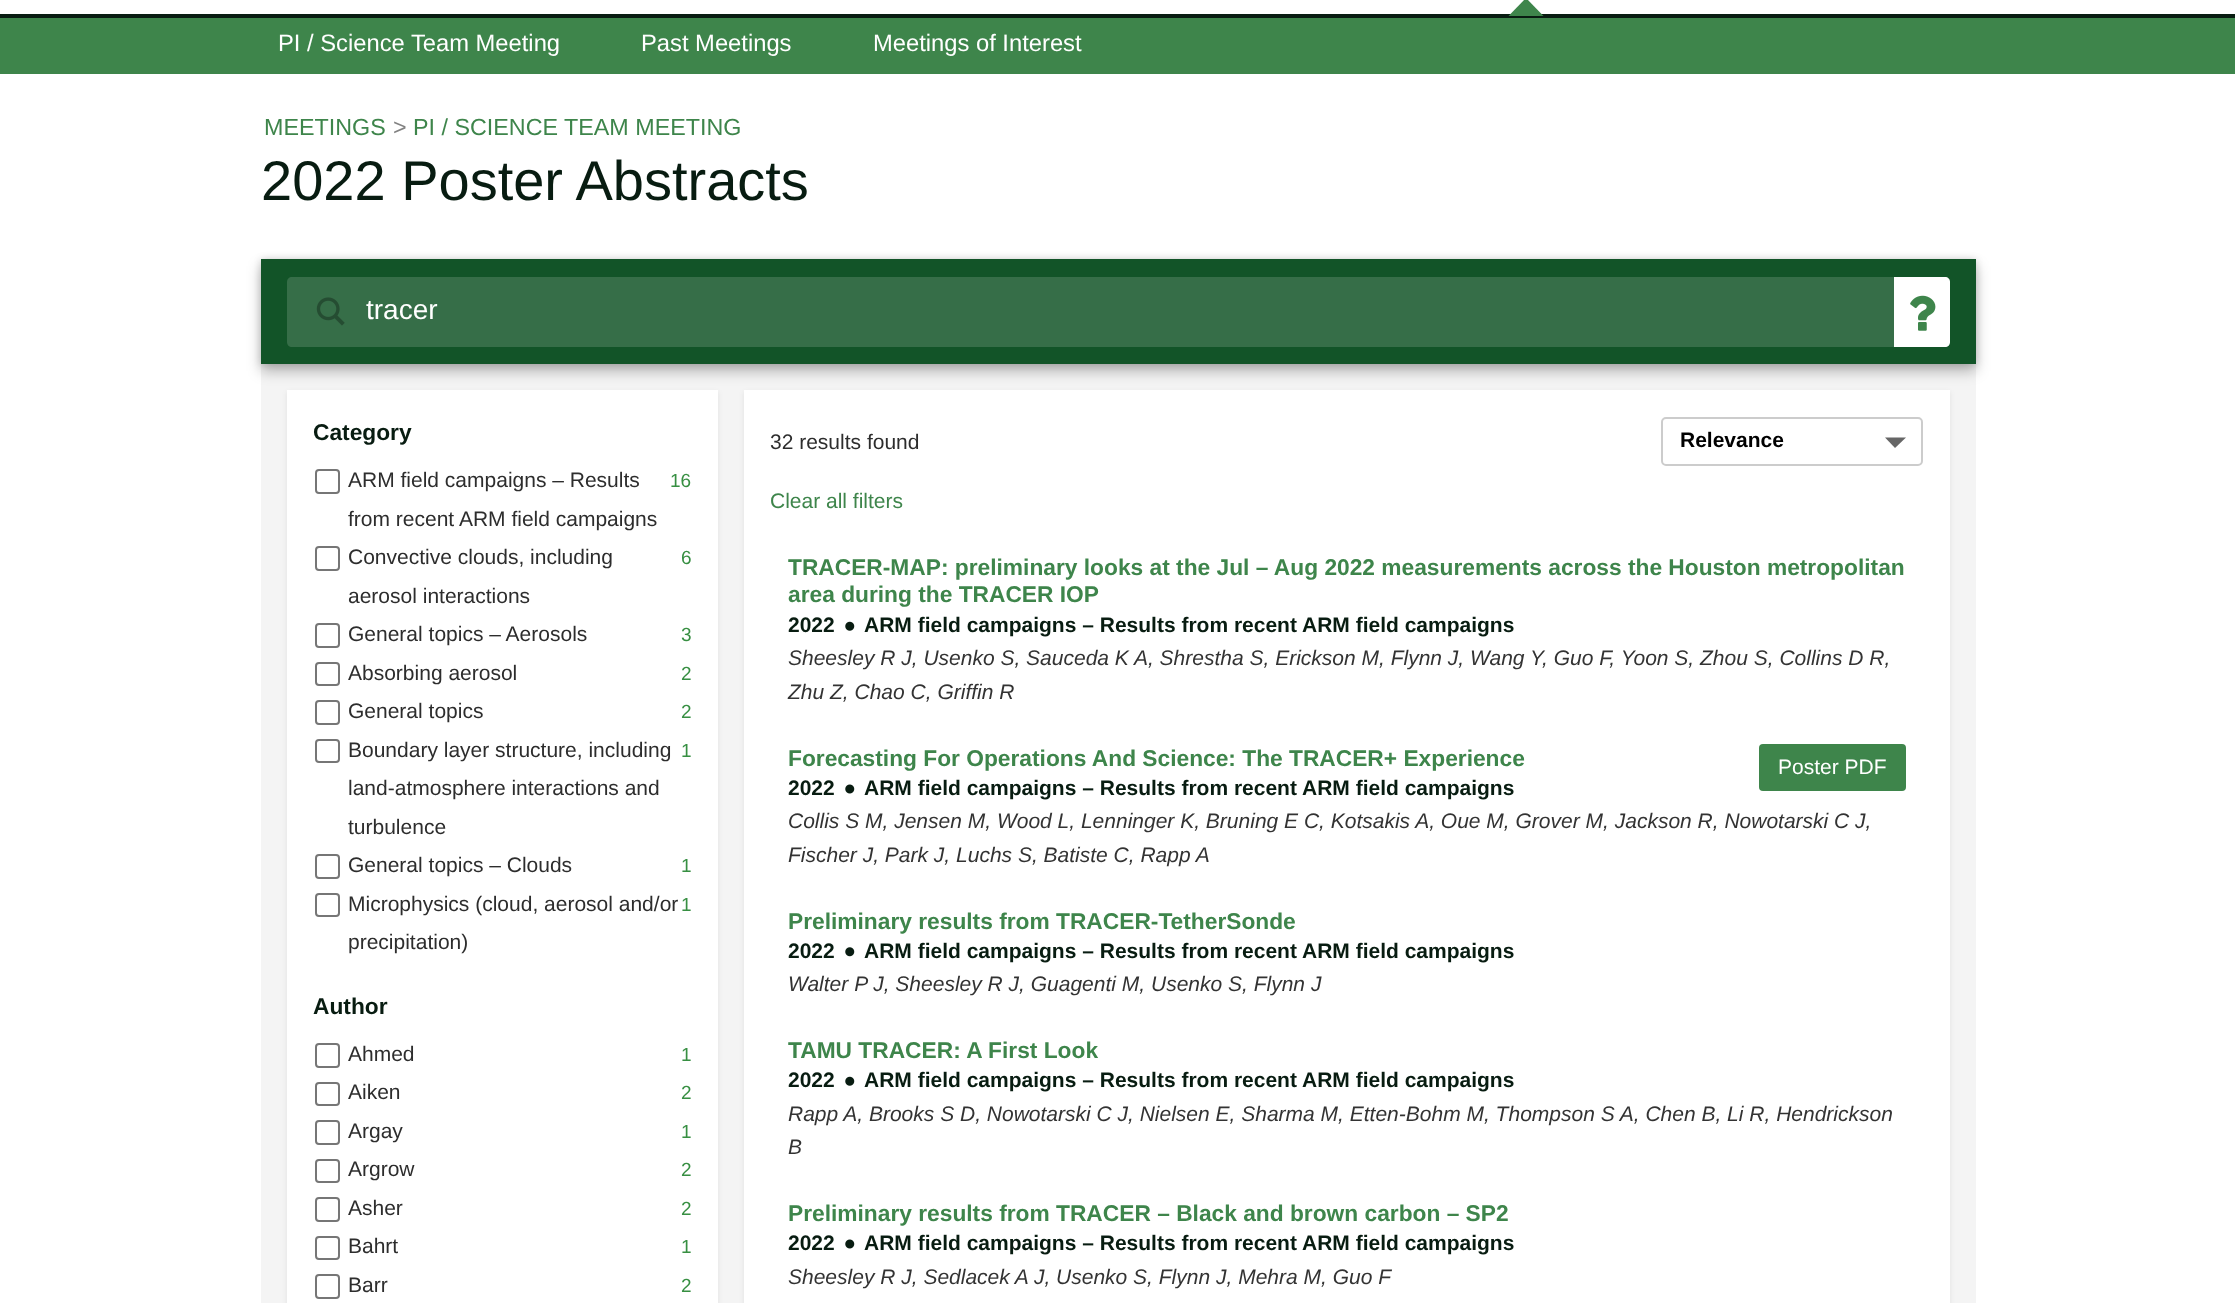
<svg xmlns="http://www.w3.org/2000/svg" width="2235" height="1303">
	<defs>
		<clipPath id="clip1"><rect x="788" y="555" width="1118" height="154" /></clipPath>
		<clipPath id="clip2"><rect x="788" y="1038" width="1118" height="128" /></clipPath>
	</defs>
	<rect width="100%" height="100%" fill="#FFFFFF" />
	<rect x="0" y="14" width="2235" height="4" fill="#081C11" />
	<path d="M1543.5 16H1508.5L1526-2Z" fill="#3E854B" />
	<rect x="0" y="18" width="2235" height="56" fill="#3E854B" />
	<g font-family="Liberation Sans" font-size="23.75" fill="#FFFFFF">
		<text x="278" y="51">PI / Science Team Meeting</text>
		<text x="641" y="51">Past Meetings</text>
		<text x="873" y="51">Meetings of Interest</text>
	</g>
	<text x="264" y="135" font-family="Liberation Sans" font-size="23.3" fill="#3E854B">MEETINGS</text>
	<text x="393" y="135" font-family="Liberation Sans" font-size="23.3" fill="#828282">&gt;</text>
	<text x="413" y="135" font-family="Liberation Sans" font-size="23.3" fill="#3E854B">PI / SCIENCE TEAM MEETING</text>
	<text x="261" y="200" font-family="Liberation Sans" font-size="56" fill="#081C11">2022 Poster Abstracts</text>
	<rect x="261" y="364" width="1715" height="939" fill="#F4F4F4" />
	<rect x="287" y="392" width="431" height="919" fill="#000000" fill-opacity="0.08" filter="blur(2.5px)" />
	<rect x="287" y="390" width="431" height="913" fill="#FFFFFF" />
	<rect x="744" y="392" width="1206" height="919" fill="#000000" fill-opacity="0.08" filter="blur(2.5px)" />
	<rect x="744" y="390" width="1206" height="913" fill="#FFFFFF" />
	<rect x="261" y="266" width="1715" height="105" fill="#000000" fill-opacity="0.28" filter="blur(7px)" />
	<rect x="261" y="259" width="1715" height="105" fill="#000000" fill-opacity="0.14" filter="blur(3.5px)" />
	<rect x="261" y="259" width="1715" height="105" fill="#125428" />
	<path d="M292 277H1894V347H292C289 347 287 345 287 342V282C287 279 289 277 292 277Z" fill="#366E48" />
	<image x="316" y="297" width="29" height="29" href="assets/img1.png" />
	<text x="366" y="319" font-family="Liberation Sans" font-size="28" fill="#FFFFFF">tracer</text>
	<path d="M1894 277H1945C1948 277 1950 279 1950 282V342C1950 345 1948 347 1945 347H1894Z" fill="#FFFFFF" />
	<image x="1910" y="295" width="26" height="36" href="assets/img2.png" />
	<text x="313" y="440" font-family="Liberation Sans" font-size="22.75" font-weight="700" fill="#081C11">Category</text>
	<rect x="316" y="470" width="23" height="23" rx="3" fill="none" stroke="#767676" stroke-width="2" />
	<g font-family="Liberation Sans" font-size="21" fill="#2D2D2D">
		<text x="348" y="487">ARM field campaigns – Results</text>
		<text x="348" y="526">from recent ARM field campaigns</text>
	</g>
	<text x="670" y="487" font-family="Liberation Sans" font-size="19" fill="#378F42">16</text>
	<rect x="316" y="547" width="23" height="23" rx="3" fill="none" stroke="#767676" stroke-width="2" />
	<g font-family="Liberation Sans" font-size="21" fill="#2D2D2D">
		<text x="348" y="564">Convective clouds, including</text>
		<text x="348" y="603">aerosol interactions</text>
	</g>
	<text x="681" y="564" font-family="Liberation Sans" font-size="19" fill="#378F42">6</text>
	<rect x="316" y="624" width="23" height="23" rx="3" fill="none" stroke="#767676" stroke-width="2" />
	<text x="348" y="641" font-family="Liberation Sans" font-size="21" fill="#2D2D2D">General topics – Aerosols</text>
	<text x="681" y="641" font-family="Liberation Sans" font-size="19" fill="#378F42">3</text>
	<rect x="316" y="663" width="23" height="22" rx="3" fill="none" stroke="#767676" stroke-width="2" />
	<text x="348" y="680" font-family="Liberation Sans" font-size="21" fill="#2D2D2D">Absorbing aerosol</text>
	<text x="681" y="680" font-family="Liberation Sans" font-size="19" fill="#378F42">2</text>
	<rect x="316" y="701" width="23" height="23" rx="3" fill="none" stroke="#767676" stroke-width="2" />
	<text x="348" y="718" font-family="Liberation Sans" font-size="21" fill="#2D2D2D">General topics</text>
	<text x="681" y="718" font-family="Liberation Sans" font-size="19" fill="#378F42">2</text>
	<rect x="316" y="740" width="23" height="22" rx="3" fill="none" stroke="#767676" stroke-width="2" />
	<g font-family="Liberation Sans" font-size="21" fill="#2D2D2D">
		<text x="348" y="757">Boundary layer structure, including</text>
		<text x="348" y="795">land-atmosphere interactions and</text>
		<text x="348" y="834">turbulence</text>
	</g>
	<text x="681" y="757" font-family="Liberation Sans" font-size="19" fill="#378F42">1</text>
	<rect x="316" y="855" width="23" height="23" rx="3" fill="none" stroke="#767676" stroke-width="2" />
	<text x="348" y="872" font-family="Liberation Sans" font-size="21" fill="#2D2D2D">General topics – Clouds</text>
	<text x="681" y="872" font-family="Liberation Sans" font-size="19" fill="#378F42">1</text>
	<rect x="316" y="894" width="23" height="22" rx="3" fill="none" stroke="#767676" stroke-width="2" />
	<g font-family="Liberation Sans" font-size="21" fill="#2D2D2D">
		<text x="348" y="911">Microphysics (cloud, aerosol and/or</text>
		<text x="348" y="949">precipitation)</text>
	</g>
	<text x="681" y="911" font-family="Liberation Sans" font-size="19" fill="#378F42">1</text>
	<text x="313" y="1014" font-family="Liberation Sans" font-size="22.75" font-weight="700" fill="#081C11">Author</text>
	<rect x="316" y="1044" width="23" height="23" rx="3" fill="none" stroke="#767676" stroke-width="2" />
	<text x="348" y="1061" font-family="Liberation Sans" font-size="21" fill="#2D2D2D">Ahmed</text>
	<text x="681" y="1061" font-family="Liberation Sans" font-size="19" fill="#378F42">1</text>
	<rect x="316" y="1083" width="23" height="22" rx="3" fill="none" stroke="#767676" stroke-width="2" />
	<text x="348" y="1099" font-family="Liberation Sans" font-size="21" fill="#2D2D2D">Aiken</text>
	<text x="681" y="1099" font-family="Liberation Sans" font-size="19" fill="#378F42">2</text>
	<rect x="316" y="1121" width="23" height="23" rx="3" fill="none" stroke="#767676" stroke-width="2" />
	<text x="348" y="1138" font-family="Liberation Sans" font-size="21" fill="#2D2D2D">Argay</text>
	<text x="681" y="1138" font-family="Liberation Sans" font-size="19" fill="#378F42">1</text>
	<rect x="316" y="1160" width="23" height="22" rx="3" fill="none" stroke="#767676" stroke-width="2" />
	<text x="348" y="1176" font-family="Liberation Sans" font-size="21" fill="#2D2D2D">Argrow</text>
	<text x="681" y="1176" font-family="Liberation Sans" font-size="19" fill="#378F42">2</text>
	<rect x="316" y="1198" width="23" height="23" rx="3" fill="none" stroke="#767676" stroke-width="2" />
	<text x="348" y="1215" font-family="Liberation Sans" font-size="21" fill="#2D2D2D">Asher</text>
	<text x="681" y="1215" font-family="Liberation Sans" font-size="19" fill="#378F42">2</text>
	<rect x="316" y="1237" width="23" height="22" rx="3" fill="none" stroke="#767676" stroke-width="2" />
	<text x="348" y="1253" font-family="Liberation Sans" font-size="21" fill="#2D2D2D">Bahrt</text>
	<text x="681" y="1253" font-family="Liberation Sans" font-size="19" fill="#378F42">1</text>
	<rect x="316" y="1275" width="23" height="23" rx="3" fill="none" stroke="#767676" stroke-width="2" />
	<text x="348" y="1292" font-family="Liberation Sans" font-size="21" fill="#2D2D2D">Barr</text>
	<text x="681" y="1292" font-family="Liberation Sans" font-size="19" fill="#378F42">2</text>
	<text x="770" y="449" font-family="Liberation Sans" font-size="21" fill="#2D2D2D">32 results found</text>
	<rect x="1662" y="418" width="260" height="47" rx="4" fill="none" stroke="#CCCCCC" stroke-width="2" />
	<text x="1680" y="447" font-family="Liberation Sans" font-size="21" font-weight="700" fill="#000000">Relevance</text>
	<path d="M1885 437.5H1906L1895 448Z" fill="#666666" />
	<text x="770" y="508" font-family="Liberation Sans" font-size="21" fill="#3E854B">Clear all filters</text>
	<g clip-path="url(#clip1)">
		<text x="788" y="575" font-family="Liberation Sans" font-size="22.75" font-weight="700" fill="#3E854B">TRACER-MAP: preliminary looks at the Jul – Aug 2022 measurements across the Houston metropolitan</text>
	</g>
	<text x="788" y="602" font-family="Liberation Sans" font-size="22.75" font-weight="700" fill="#3E854B">area during the TRACER IOP</text>
	<text x="788" y="632" font-family="Liberation Sans" font-size="21" font-weight="700" fill="#081C11">2022</text>
	<image x="845" y="621" width="10" height="10" href="assets/img3.png" />
	<text x="864" y="632" font-family="Liberation Sans" font-size="21" font-weight="700" fill="#081C11">ARM field campaigns – Results from recent ARM field campaigns</text>
	<g font-family="Liberation Sans" font-size="21" font-style="italic" fill="#333333">
		<text x="788" y="665">Sheesley R J, Usenko S, Sauceda K A, Shrestha S, Erickson M, Flynn J, Wang Y, Guo F, Yoon S, Zhou S, Collins D R,</text>
		<text x="788" y="699">Zhu Z, Chao C, Griffin R</text>
	</g>
	<text x="788" y="766" font-family="Liberation Sans" font-size="22.75" font-weight="700" fill="#3E854B">Forecasting For Operations And Science: The TRACER+ Experience</text>
	<rect x="1759" y="744" width="147" height="47" rx="4" fill="#3E854B" />
	<text x="1778" y="774" font-family="Liberation Sans" font-size="21" fill="#FFFFFF">Poster PDF</text>
	<text x="788" y="795" font-family="Liberation Sans" font-size="21" font-weight="700" fill="#081C11">2022</text>
	<image x="845" y="784" width="10" height="10" href="assets/img4.png" />
	<text x="864" y="795" font-family="Liberation Sans" font-size="21" font-weight="700" fill="#081C11">ARM field campaigns – Results from recent ARM field campaigns</text>
	<g font-family="Liberation Sans" font-size="21" font-style="italic" fill="#333333">
		<text x="788" y="828">Collis S M, Jensen M, Wood L, Lenninger K, Bruning E C, Kotsakis A, Oue M, Grover M, Jackson R, Nowotarski C J,</text>
		<text x="788" y="862">Fischer J, Park J, Luchs S, Batiste C, Rapp A</text>
	</g>
	<text x="788" y="929" font-family="Liberation Sans" font-size="22.75" font-weight="700" fill="#3E854B">Preliminary results from TRACER-TetherSonde</text>
	<text x="788" y="958" font-family="Liberation Sans" font-size="21" font-weight="700" fill="#081C11">2022</text>
	<image x="845" y="947" width="10" height="10" href="assets/img5.png" />
	<text x="864" y="958" font-family="Liberation Sans" font-size="21" font-weight="700" fill="#081C11">ARM field campaigns – Results from recent ARM field campaigns</text>
	<text x="788" y="991" font-family="Liberation Sans" font-size="21" font-style="italic" fill="#333333">Walter P J, Sheesley R J, Guagenti M, Usenko S, Flynn J</text>
	<g clip-path="url(#clip2)">
		<text x="788" y="1058" font-family="Liberation Sans" font-size="22.75" font-weight="700" fill="#3E854B">TAMU TRACER: A First Look</text>
	</g>
	<text x="788" y="1087" font-family="Liberation Sans" font-size="21" font-weight="700" fill="#081C11">2022</text>
	<image x="845" y="1076" width="10" height="10" href="assets/img3.png" />
	<text x="864" y="1087" font-family="Liberation Sans" font-size="21" font-weight="700" fill="#081C11">ARM field campaigns – Results from recent ARM field campaigns</text>
	<g font-family="Liberation Sans" font-size="21" font-style="italic" fill="#333333">
		<text x="788" y="1121">Rapp A, Brooks S D, Nowotarski C J, Nielsen E, Sharma M, Etten-Bohm M, Thompson S A, Chen B, Li R, Hendrickson</text>
		<text x="788" y="1154">B</text>
	</g>
	<text x="788" y="1221" font-family="Liberation Sans" font-size="22.75" font-weight="700" fill="#3E854B">Preliminary results from TRACER – Black and brown carbon – SP2</text>
	<text x="788" y="1250" font-family="Liberation Sans" font-size="21" font-weight="700" fill="#081C11">2022</text>
	<image x="845" y="1239" width="10" height="10" href="assets/img4.png" />
	<text x="864" y="1250" font-family="Liberation Sans" font-size="21" font-weight="700" fill="#081C11">ARM field campaigns – Results from recent ARM field campaigns</text>
	<text x="788" y="1284" font-family="Liberation Sans" font-size="21" font-style="italic" fill="#333333">Sheesley R J, Sedlacek A J, Usenko S, Flynn J, Mehra M, Guo F</text>
</svg>
